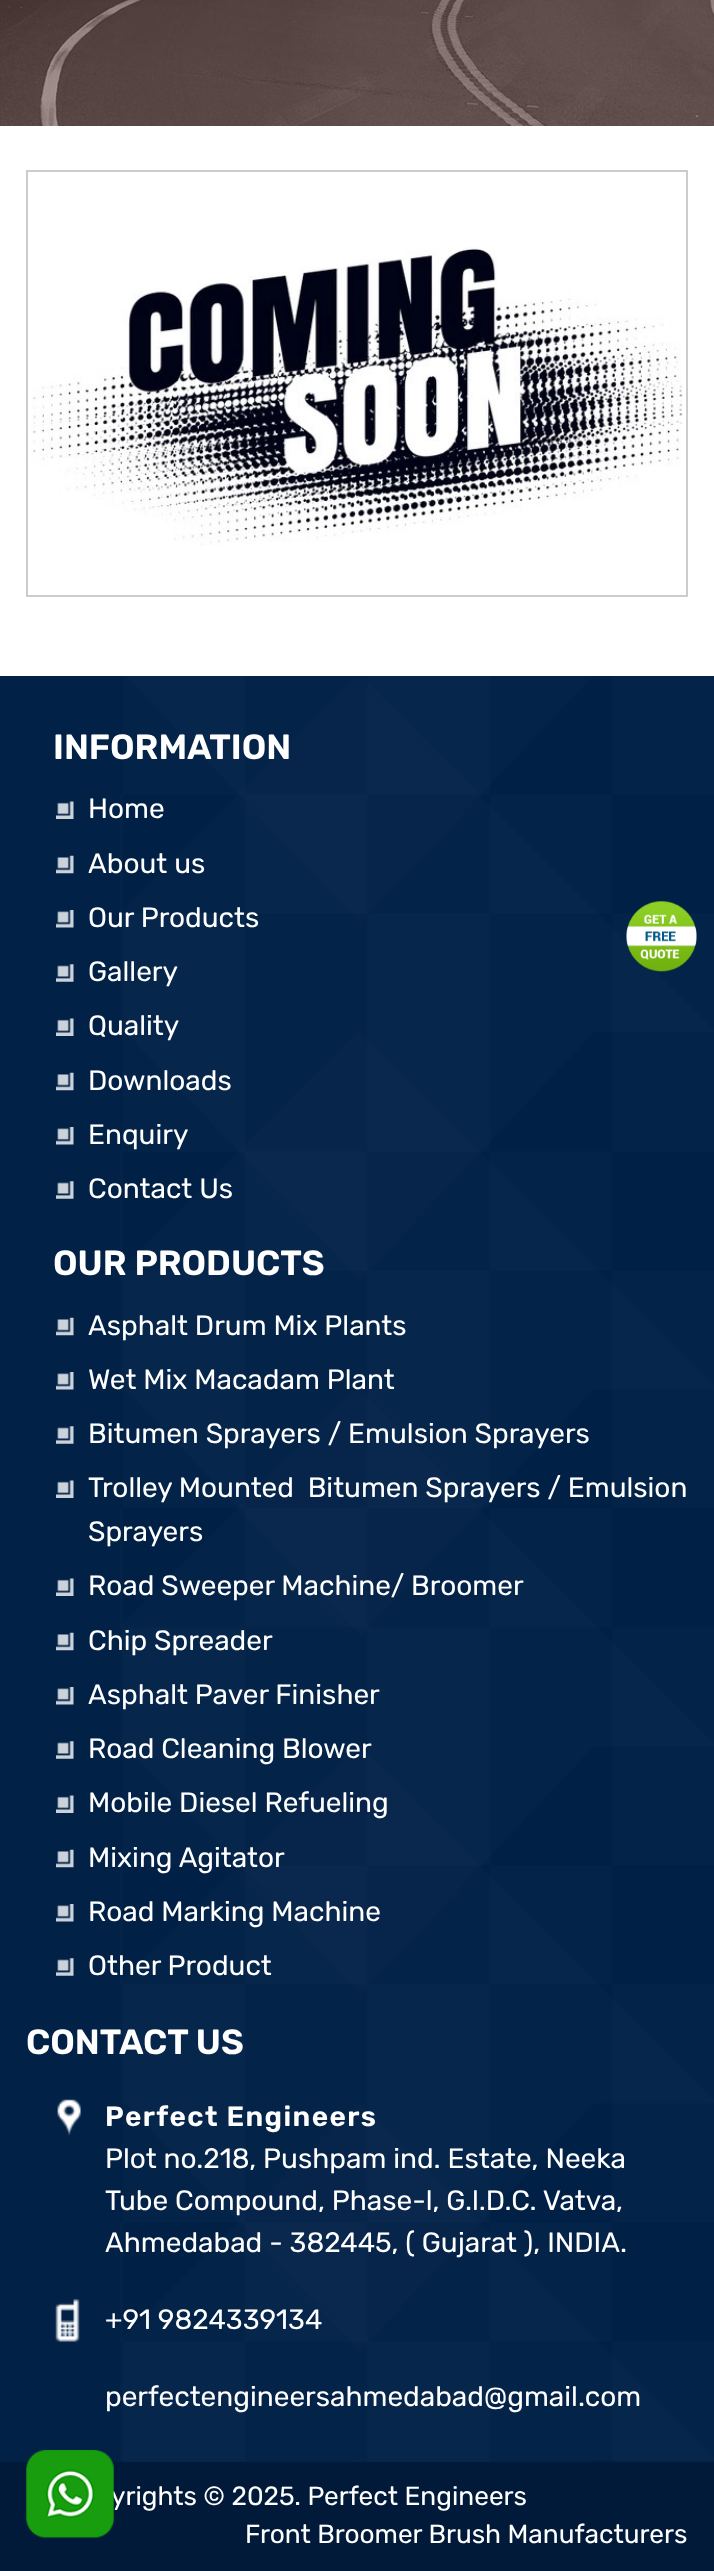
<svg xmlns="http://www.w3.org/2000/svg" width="714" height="2571">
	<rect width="100%" height="100%" fill="#FFFFFF" />
	<image x="0" y="0" width="714" height="126" href="assets/img1.png" />
	<rect x="27" y="171" width="660" height="425" fill="none" stroke="#CCCCCC" stroke-width="2" />
	<image x="31" y="247" width="652" height="299" href="assets/img2.png" />
	<rect x="0" y="676" width="714" height="1786" fill="#022147" />
	<image x="120" y="676" width="594" height="1786" href="assets/img3.png" />
	<text x="53" y="759" font-family="Rubik" font-size="35" font-weight="600" fill="#FFFFFF">INFORMATION</text>
	<image x="56" y="801" width="18" height="18" href="assets/img4.png" />
	<text x="88" y="818" font-family="Rubik" font-size="28" fill="#FFFFFF">Home</text>
	<image x="56" y="855" width="18" height="19" href="assets/img5.png" />
	<text x="88" y="873" font-family="Rubik" font-size="28" fill="#FFFFFF">About us</text>
	<image x="56" y="910" width="18" height="18" href="assets/img6.png" />
	<text x="88" y="927" font-family="Rubik" font-size="28" fill="#FFFFFF">Our Products</text>
	<image x="56" y="964" width="18" height="18" href="assets/img7.png" />
	<text x="88" y="981" font-family="Rubik" font-size="28" fill="#FFFFFF">Gallery</text>
	<image x="56" y="1018" width="18" height="18" href="assets/img4.png" />
	<text x="88" y="1035" font-family="Rubik" font-size="28" fill="#FFFFFF">Quality</text>
	<image x="56" y="1072" width="18" height="19" href="assets/img5.png" />
	<text x="88" y="1090" font-family="Rubik" font-size="28" fill="#FFFFFF">Downloads</text>
	<image x="56" y="1127" width="18" height="18" href="assets/img6.png" />
	<text x="88" y="1144" font-family="Rubik" font-size="28" fill="#FFFFFF">Enquiry</text>
	<image x="56" y="1181" width="18" height="18" href="assets/img7.png" />
	<text x="88" y="1198" font-family="Rubik" font-size="28" fill="#FFFFFF">Contact Us</text>
	<text x="53" y="1275" font-family="Rubik" font-size="35" font-weight="600" fill="#FFFFFF">OUR PRODUCTS</text>
	<image x="56" y="1317" width="18" height="19" href="assets/img5.png" />
	<text x="88" y="1335" font-family="Rubik" font-size="28" fill="#FFFFFF">Asphalt Drum Mix Plants</text>
	<image x="56" y="1372" width="18" height="18" href="assets/img6.png" />
	<text x="88" y="1389" font-family="Rubik" font-size="28" fill="#FFFFFF">Wet Mix Macadam Plant</text>
	<image x="56" y="1426" width="18" height="18" href="assets/img7.png" />
	<text x="88" y="1443" font-family="Rubik" font-size="28" fill="#FFFFFF">Bitumen Sprayers / Emulsion Sprayers</text>
	<image x="56" y="1480" width="18" height="18" href="assets/img4.png" />
	<g font-family="Rubik" font-size="28" fill="#FFFFFF">
		<text x="88" y="1497" xml:space="preserve">Trolley Mounted  Bitumen Sprayers / Emulsion</text>
		<text x="88" y="1541">Sprayers</text>
	</g>
	<image x="56" y="1578" width="18" height="18" href="assets/img4.png" />
	<text x="88" y="1595" font-family="Rubik" font-size="28" fill="#FFFFFF">Road Sweeper Machine/ Broomer</text>
	<image x="56" y="1632" width="18" height="19" href="assets/img5.png" />
	<text x="88" y="1650" font-family="Rubik" font-size="28" fill="#FFFFFF">Chip Spreader</text>
	<image x="56" y="1687" width="18" height="18" href="assets/img6.png" />
	<text x="88" y="1704" font-family="Rubik" font-size="28" fill="#FFFFFF">Asphalt Paver Finisher</text>
	<image x="56" y="1741" width="18" height="18" href="assets/img7.png" />
	<text x="88" y="1758" font-family="Rubik" font-size="28" fill="#FFFFFF">Road Cleaning Blower</text>
	<image x="56" y="1795" width="18" height="18" href="assets/img4.png" />
	<text x="88" y="1812" font-family="Rubik" font-size="28" fill="#FFFFFF">Mobile Diesel Refueling</text>
	<image x="56" y="1849" width="18" height="19" href="assets/img5.png" />
	<text x="88" y="1867" font-family="Rubik" font-size="28" fill="#FFFFFF">Mixing Agitator</text>
	<image x="56" y="1904" width="18" height="18" href="assets/img6.png" />
	<text x="88" y="1921" font-family="Rubik" font-size="28" fill="#FFFFFF">Road Marking Machine</text>
	<image x="56" y="1958" width="18" height="18" href="assets/img7.png" />
	<text x="88" y="1975" font-family="Rubik" font-size="28" fill="#FFFFFF">Other Product</text>
	<text x="26" y="2054" font-family="Rubik" font-size="35" font-weight="600" fill="#FFFFFF">CONTACT US</text>
	<image x="57" y="2099" width="24" height="37" href="assets/img8.png" />
	<text x="105" y="2126" font-family="Rubik" font-size="28" font-weight="600" letter-spacing="1.4" fill="#FFFFFF">Perfect Engineers</text>
	<g font-family="Rubik" font-size="28" fill="#FFFFFF">
		<text x="105" y="2168">Plot no.218, Pushpam ind. Estate, Neeka</text>
		<text x="105" y="2210">Tube Compound, Phase-l, G.l.D.C. Vatva,</text>
		<text x="105" y="2252">Ahmedabad - 382445, ( Gujarat ), INDIA.</text>
	</g>
	<image x="55" y="2299" width="25" height="43" href="assets/img9.png" />
	<g font-family="Rubik" font-size="28" fill="#FFFFFF">
		<text x="105" y="2329">+91 9824339134</text>
		<text x="105" y="2406">perfectengineersahmedabad@gmail.com</text>
	</g>
	<image x="626" y="901" width="71" height="71" href="assets/img10.png" />
	<rect x="0" y="2462" width="714" height="109" fill="#011A39" />
	<text x="111" y="2505" font-family="Rubik" font-size="26.25" fill="#FFFFFF">yrights © 2025. Perfect Engineers</text>
	<image x="26" y="2450" width="88" height="88" href="assets/img11.png" />
	<text x="245" y="2543" font-family="Rubik" font-size="26.25" fill="#FFFFFF">Front Broomer Brush Manufacturers</text>
</svg>
